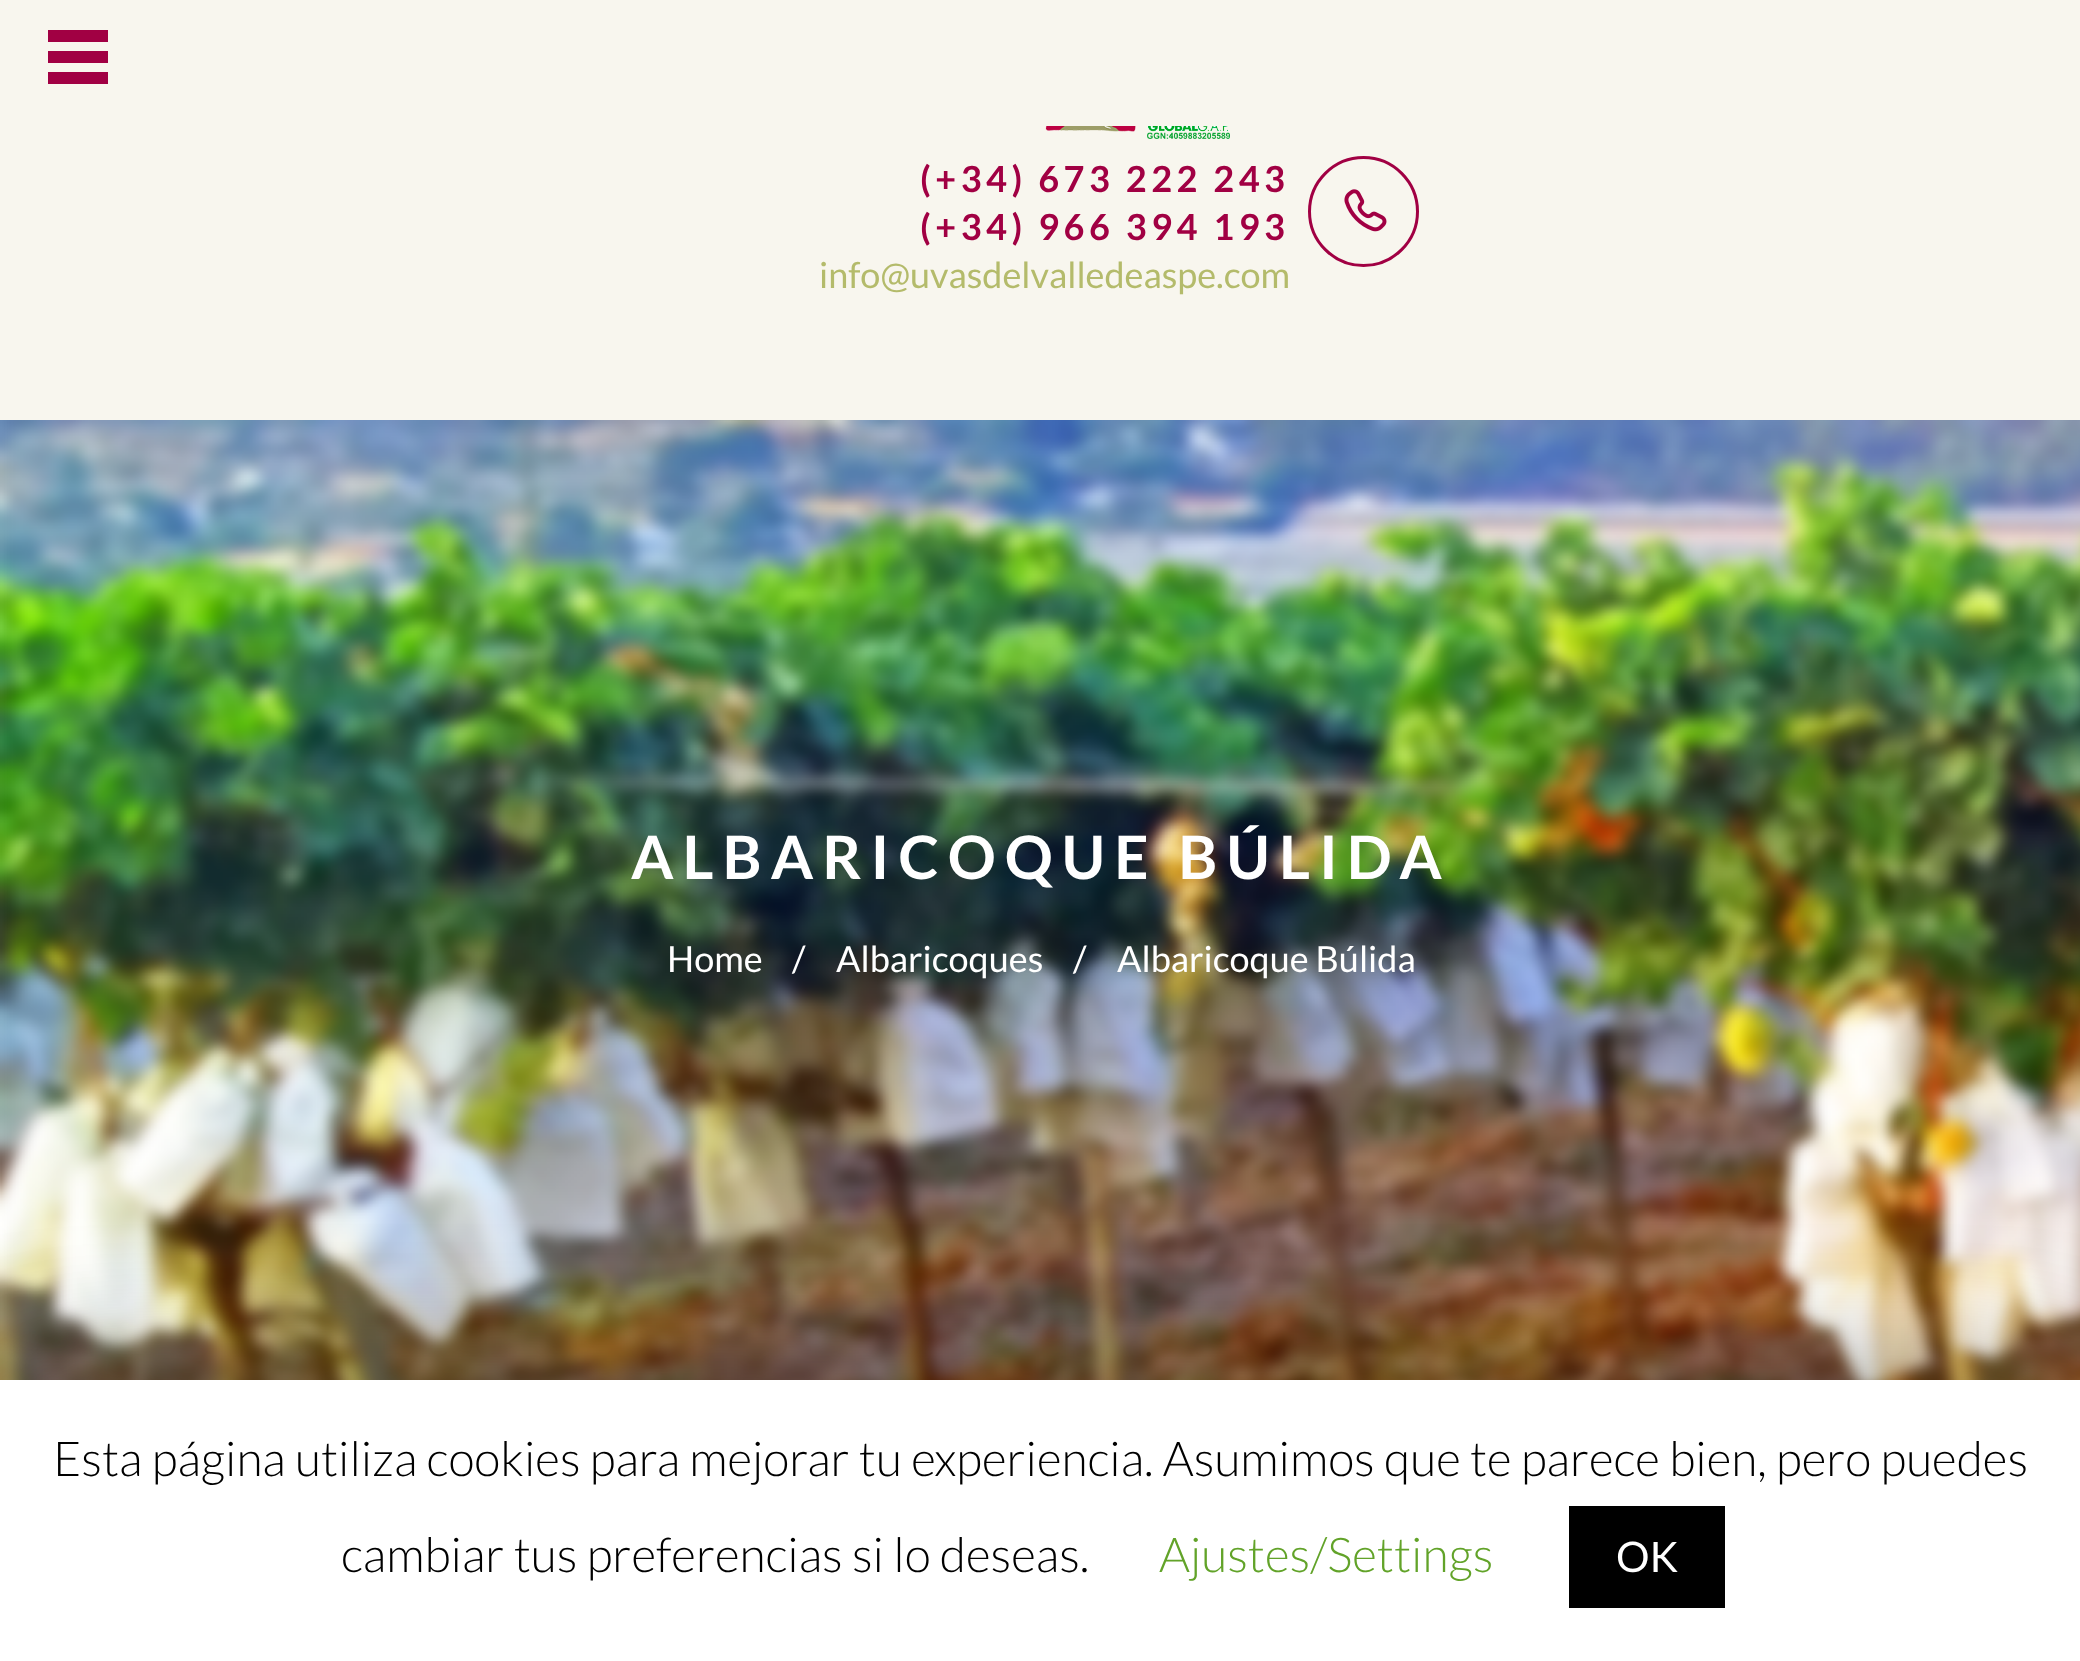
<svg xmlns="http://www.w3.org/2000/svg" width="2080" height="1661">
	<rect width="100%" height="100%" fill="#F8F6EE" />
	<rect x="48" y="30" width="60" height="12" fill="#A10043" />
	<rect x="48" y="51" width="60" height="12" fill="#A10043" />
	<rect x="48" y="72" width="60" height="12" fill="#A10043" />
	<image x="1045" y="126" width="185" height="13" href="assets/img1.png" />
	<text x="920" y="192" font-family="Lato" font-size="36" font-weight="700" letter-spacing="4.5" fill="#A10043">(+34) 673 222 243</text>
	<circle cx="1363.5" cy="211.5" r="54" fill="none" stroke="#A10043" stroke-width="3" />
	<image x="1344" y="189" width="43" height="43" href="assets/img2.png" />
	<text x="920" y="240" font-family="Lato" font-size="36" font-weight="700" letter-spacing="4.5" fill="#A10043">(+34) 966 394 193</text>
	<text x="819" y="288" font-family="Lato" font-size="36" fill="#B4BB6B">info@uvasdelvalledeaspe.com</text>
	<image x="0" y="420" width="2080" height="960" href="assets/img3.png" />
	<text x="631" y="879" font-family="Lato" font-size="60" font-weight="700" letter-spacing="9" fill="#FFFFFF">ALBARICOQUE BÚLIDA</text>
	<g font-family="Lato" font-size="36" fill="#FFFFFF">
		<text x="667" y="972">Home</text>
		<text x="792" y="972">/</text>
		<text x="836" y="972">Albaricoques</text>
		<text x="1073" y="972">/</text>
		<text x="1117" y="972">Albaricoque Búlida</text>
	</g>
	<rect x="0" y="1395" width="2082" height="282" fill="#000000" fill-opacity="0.5" filter="blur(75px)" />
	<rect x="0" y="1380" width="2080" height="281" fill="#FFFFFF" />
	<g font-family="Lato" font-size="48" font-weight="300" fill="#000000">
		<text x="53" y="1476">Esta página utiliza cookies para mejorar tu experiencia. Asumimos que te parece bien, pero puedes</text>
		<text x="341" y="1572">cambiar tus preferencias si lo deseas.</text>
	</g>
	<text x="1159" y="1572" font-family="Lato" font-size="48" font-weight="300" fill="#62A329">Ajustes/Settings</text>
	<rect x="1569" y="1506" width="156" height="102" fill="#000000" />
	<text x="1616" y="1572" font-family="Lato" font-size="42" fill="#FFFFFF">OK</text>
</svg>
